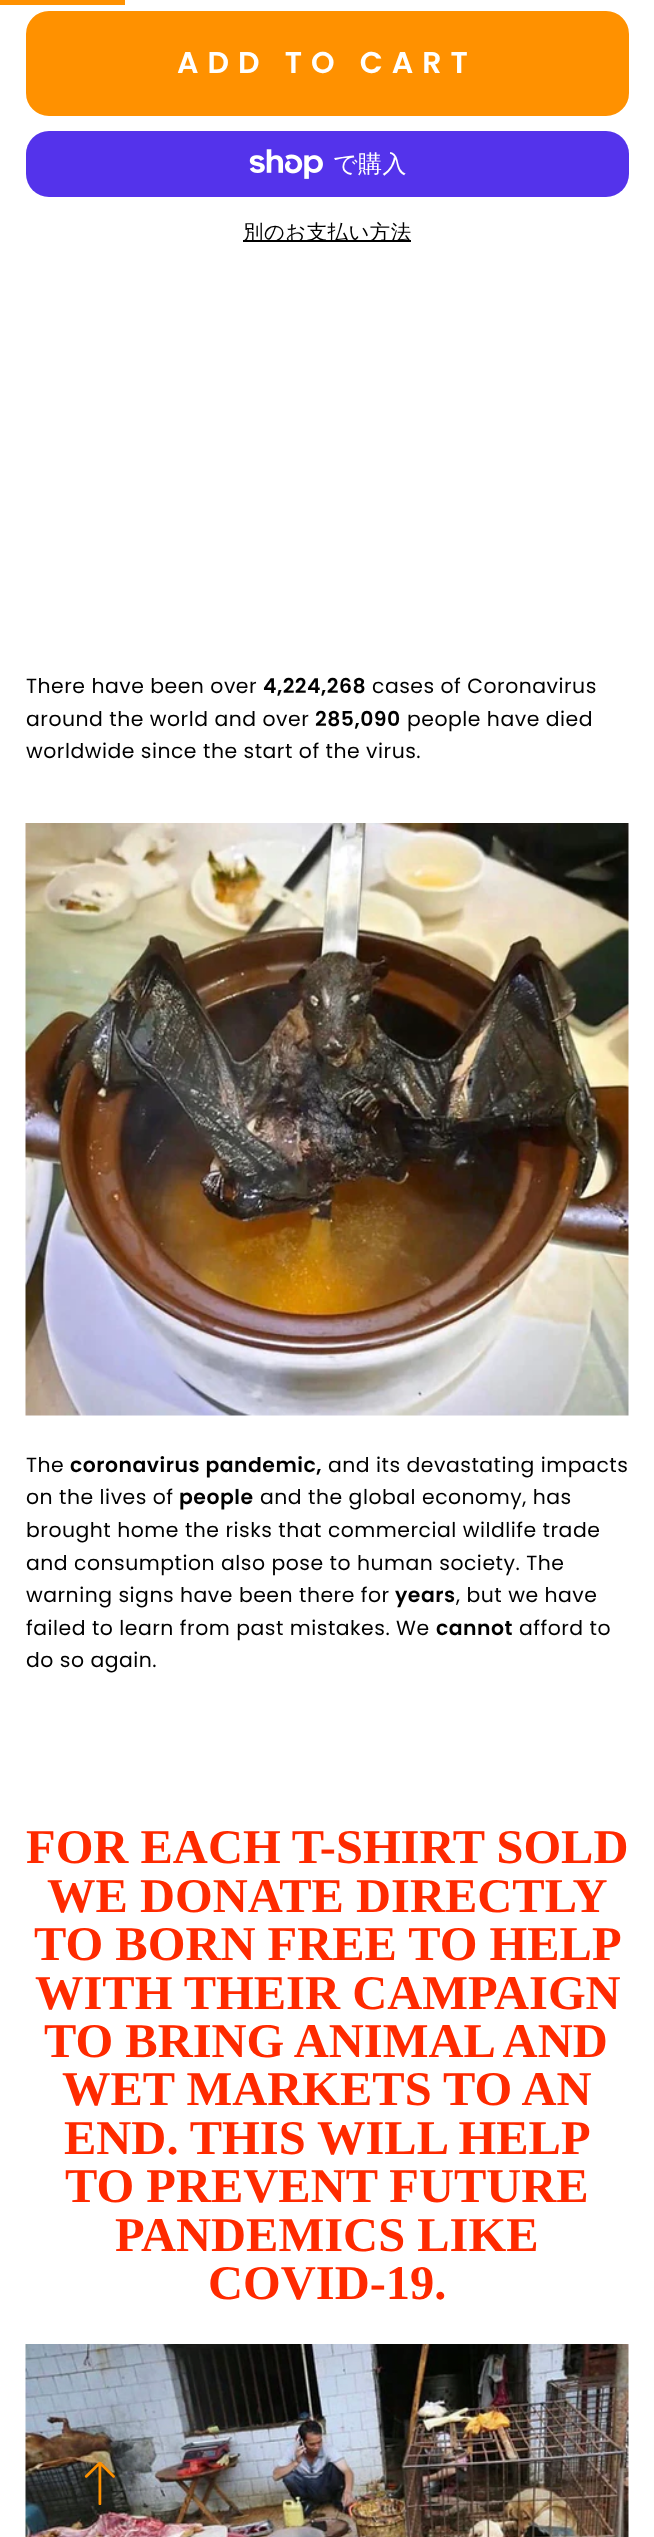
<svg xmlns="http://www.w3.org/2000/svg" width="654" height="2537">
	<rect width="100%" height="100%" fill="#FFFFFF" />
	<rect x="0" y="0" width="125" height="5" fill="#FF9100" />
	<image x="25" y="2344" width="604" height="193" href="assets/img4.png" />
	<image x="84" y="2462" width="31" height="43" href="assets/img1.png" />
	<rect x="27" y="12" width="601" height="103" rx="22" fill="#FF9100" stroke="#FF9100" stroke-width="2" />
	<text x="177" y="73" font-family="Poppins" font-size="30" font-weight="600" letter-spacing="9" fill="#FFFFFF">ADD TO CART</text>
	<rect x="26" y="131" width="603" height="66" rx="23" fill="#5433EB" />
	<image x="249" y="149" width="74" height="30" href="assets/img2.png" />
	<text x="333" y="172" font-family="WenQuanYi Zen Hei" font-size="24" font-weight="500" letter-spacing="0.5" fill="#FFFFFF">で購入</text>
	<rect x="243" y="240" width="168" height="2" fill="#000000" />
	<text x="243" y="239" font-family="WenQuanYi Zen Hei" font-size="20.4" font-weight="500" letter-spacing="0.5" fill="#000000">別のお支払い方法</text>
	<text x="26" y="693" font-family="Poppins" font-size="20.4" letter-spacing="0.5" fill="#000000">There have been over</text>
	<text x="263" y="693" font-family="Poppins" font-size="20.4" font-weight="600" letter-spacing="0.5" fill="#000000">4,224,268</text>
	<g font-family="Poppins" font-size="20.4" letter-spacing="0.5" fill="#000000">
		<text x="372" y="693">cases of Coronavirus</text>
		<text x="26" y="726">around the world and over</text>
	</g>
	<text x="315" y="726" font-family="Poppins" font-size="20.4" font-weight="600" letter-spacing="0.5" fill="#000000">285,090</text>
	<g font-family="Poppins" font-size="20.4" letter-spacing="0.5" fill="#000000">
		<text x="407" y="726">people have died</text>
		<text x="26" y="758">worldwide since the start of the virus.</text>
	</g>
	<image x="25" y="823" width="604" height="593" href="assets/img3.png" />
	<text x="26" y="1472" font-family="Poppins" font-size="20.4" letter-spacing="0.5" fill="#000000">The</text>
	<text x="70" y="1472" font-family="Poppins" font-size="20.4" font-weight="600" letter-spacing="0.5" fill="#000000">coronavirus pandemic,</text>
	<g font-family="Poppins" font-size="20.4" letter-spacing="0.5" fill="#000000">
		<text x="328" y="1472">and its devastating impacts</text>
		<text x="26" y="1504">on the lives of</text>
	</g>
	<text x="179" y="1504" font-family="Poppins" font-size="20.4" font-weight="600" letter-spacing="0.5" fill="#000000">people</text>
	<g font-family="Poppins" font-size="20.4" letter-spacing="0.5" fill="#000000">
		<text x="260" y="1504">and the global economy, has</text>
		<text x="26" y="1537">brought home the risks that commercial wildlife trade</text>
		<text x="26" y="1570">and consumption also pose to human society. The</text>
		<text x="26" y="1602">warning signs have been there for</text>
	</g>
	<text x="395" y="1602" font-family="Poppins" font-size="20.4" font-weight="600" letter-spacing="0.5" fill="#000000">years</text>
	<g font-family="Poppins" font-size="20.4" letter-spacing="0.5" fill="#000000">
		<text x="456" y="1602">, but we have</text>
		<text x="26" y="1635">failed to learn from past mistakes. We</text>
	</g>
	<text x="436" y="1635" font-family="Poppins" font-size="20.4" font-weight="600" letter-spacing="0.5" fill="#000000">cannot</text>
	<g font-family="Poppins" font-size="20.4" letter-spacing="0.5" fill="#000000">
		<text x="519" y="1635">afford to</text>
		<text x="26" y="1667">do so again.</text>
	</g>
	<g font-family="Liberation Serif" font-size="48.5" font-weight="700" fill="#FF2A00">
		<text x="26" y="1863">FOR EACH T-SHIRT SOLD</text>
		<text x="47" y="1912">WE DONATE DIRECTLY</text>
		<text x="34" y="1960">TO BORN FREE TO HELP</text>
		<text x="35" y="2009">WITH THEIR CAMPAIGN</text>
		<text x="44" y="2057">TO BRING ANIMAL AND</text>
		<text x="62" y="2105">WET MARKETS TO AN</text>
		<text x="64" y="2154">END. THIS WILL HELP</text>
		<text x="65" y="2202">TO PREVENT FUTURE</text>
		<text x="115" y="2251">PANDEMICS LIKE</text>
		<text x="208" y="2299">COVID-19.</text>
	</g>
</svg>
